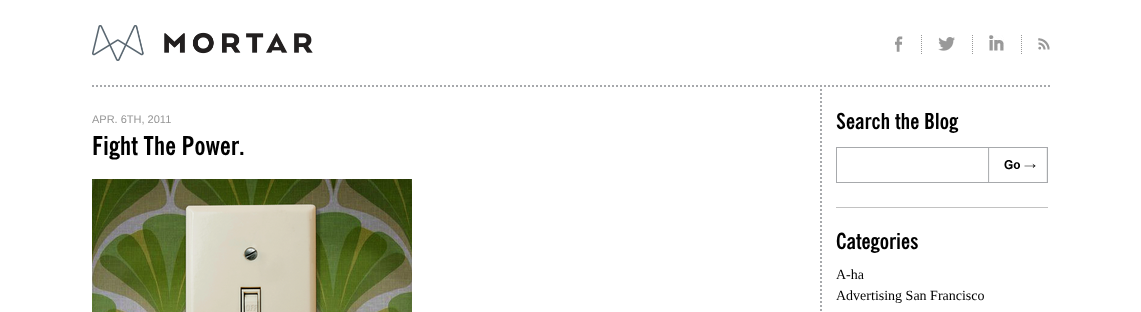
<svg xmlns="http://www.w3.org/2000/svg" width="1141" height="312">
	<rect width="100%" height="100%" fill="#FFFFFF" />
	<image x="92" y="25" width="221" height="36" href="assets/img1.png" />
	<image x="895" y="35" width="27" height="19" href="assets/img2.png" />
	<image x="938" y="35" width="35" height="19" href="assets/img3.png" />
	<image x="989" y="35" width="33" height="19" href="assets/img4.png" />
	<image x="1038" y="38" width="12" height="12" href="assets/img5.png" />
	<image x="92" y="85" width="958" height="2" href="assets/img6.png" />
	<text x="92" y="123" font-family="Liberation Sans" font-size="11" fill="#959595">APR. 6TH, 2011</text>
	<text x="92" y="155" font-family="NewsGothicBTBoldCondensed" font-size="26" font-weight="700" fill="#000000">Fight The Power.</text>
	<image x="92" y="179" width="320" height="133" href="assets/img7.png" />
	<image x="820" y="89" width="2" height="222" href="assets/img8.png" />
	<rect x="836" y="207" width="212" height="1" fill="#C2C2C2" />
	<text x="836" y="129" font-family="NewsGothicBTBoldCondensed" font-size="22" font-weight="700" fill="#000000">Search the Blog</text>
	<rect x="836.5" y="147.5" width="152" height="35" fill="none" stroke="#A7A9AC" />
	<image x="988" y="147" width="60" height="36" href="assets/img9.png" />
	<text x="836" y="249" font-family="NewsGothicBTBoldCondensed" font-size="22" font-weight="700" fill="#000000">Categories</text>
	<g font-family="Liberation Serif" font-size="14" fill="#000000">
		<text x="836" y="279">A-ha</text>
		<text x="836" y="300">Advertising San Francisco</text>
	</g>
</svg>
